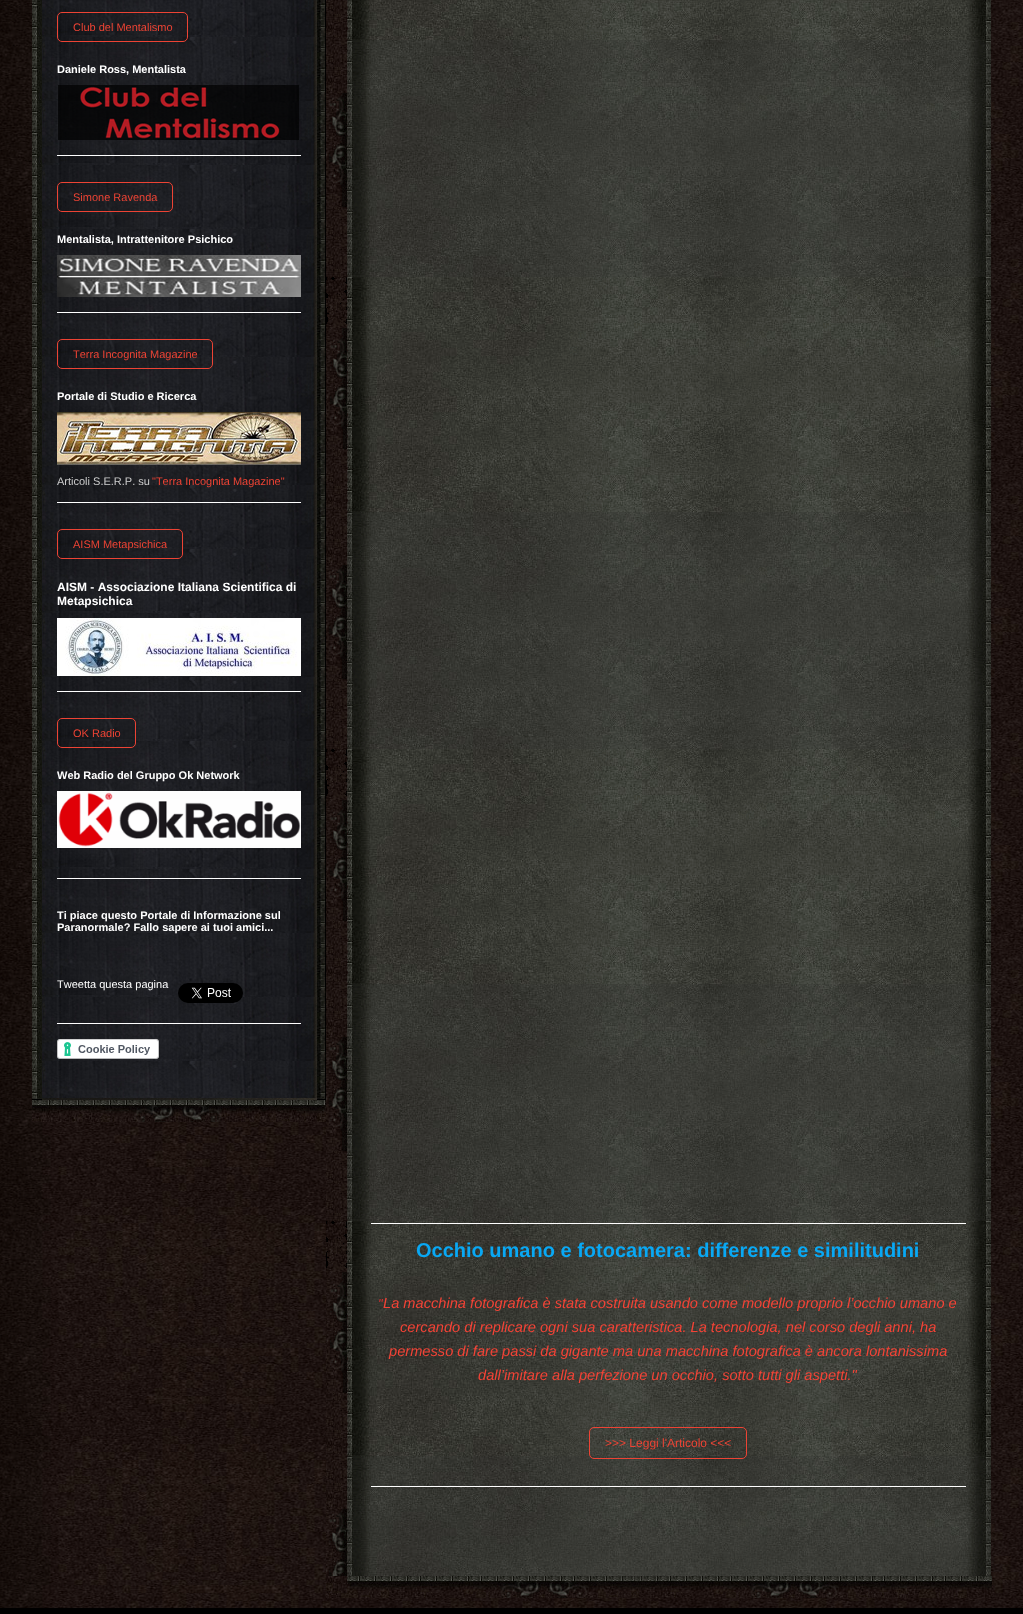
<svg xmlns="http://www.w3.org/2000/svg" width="1023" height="1614">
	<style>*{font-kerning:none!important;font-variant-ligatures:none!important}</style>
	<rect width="100%" height="100%" fill="#FFFFFF" />
	<image x="0" y="0" width="1023" height="1608" href="assets/img1.png" />
	<image x="32" y="0" width="294" height="1098" href="assets/img2.png" />
	<rect x="57.5" y="12.5" width="130" height="29" rx="4.5" fill="none" stroke="#ED4334" />
	<text x="73" y="31" font-family="Liberation Sans" font-size="11" fill="#ED4334">Club del Mentalismo</text>
	<text x="57" y="73" font-family="Liberation Sans" font-size="11" font-weight="700" fill="#FFFFFF">Daniele Ross, Mentalista</text>
	<image x="58" y="85" width="241" height="55" href="assets/img3.png" />
	<rect x="57" y="155" width="244" height="1" fill="#FFFFFF" />
	<rect x="57.5" y="182.5" width="115" height="29" rx="4.5" fill="none" stroke="#ED4334" />
	<text x="73" y="201" font-family="Liberation Sans" font-size="11" fill="#ED4334">Simone Ravenda</text>
	<text x="57" y="243" font-family="Liberation Sans" font-size="11" font-weight="700" fill="#FFFFFF">Mentalista, Intrattenitore Psichico</text>
	<image x="57" y="255" width="244" height="42" href="assets/img4.png" />
	<rect x="57" y="312" width="244" height="1" fill="#FFFFFF" />
	<rect x="57.5" y="339.5" width="155" height="29" rx="4.5" fill="none" stroke="#ED4334" />
	<text x="73" y="358" font-family="Liberation Sans" font-size="11" fill="#ED4334">Terra Incognita Magazine</text>
	<text x="57" y="400" font-family="Liberation Sans" font-size="11" font-weight="700" fill="#FFFFFF">Portale di Studio e Ricerca</text>
	<image x="57" y="412" width="244" height="53" href="assets/img5.png" />
	<text x="57" y="485" font-family="Liberation Sans" font-size="11" fill="#CCCCCC">Articoli S.E.R.P. su</text>
	<text x="152" y="485" font-family="Liberation Sans" font-size="11" fill="#ED4334">"Terra Incognita Magazine"</text>
	<rect x="57" y="502" width="244" height="1" fill="#FFFFFF" />
	<rect x="57.5" y="529.5" width="125" height="29" rx="4.5" fill="none" stroke="#ED4334" />
	<text x="73" y="548" font-family="Liberation Sans" font-size="11" fill="#ED4334">AISM Metapsichica</text>
	<g font-family="Liberation Sans" font-size="12" font-weight="700" fill="#FFFFFF">
		<text x="57" y="591">AISM - Associazione Italiana Scientifica di</text>
		<text x="57" y="605">Metapsichica</text>
	</g>
	<image x="57" y="618" width="244" height="58" href="assets/img6.png" />
	<rect x="57" y="691" width="244" height="1" fill="#FFFFFF" />
	<rect x="57.5" y="718.5" width="78" height="29" rx="4.5" fill="none" stroke="#ED4334" />
	<text x="73" y="737" font-family="Liberation Sans" font-size="11" fill="#ED4334">OK Radio</text>
	<text x="57" y="779" font-family="Liberation Sans" font-size="11" font-weight="700" fill="#FFFFFF">Web Radio del Gruppo Ok Network</text>
	<image x="57" y="791" width="244" height="57" href="assets/img7.png" />
	<rect x="57" y="878" width="244" height="1" fill="#FFFFFF" />
	<g font-family="Liberation Sans" font-size="11" font-weight="700" fill="#FFFFFF">
		<text x="57" y="919">Ti piace questo Portale di Informazione sul</text>
		<text x="57" y="931">Paranormale? Fallo sapere ai tuoi amici...</text>
	</g>
	<text x="57" y="988" font-family="Liberation Sans" font-size="11" fill="#FFFFFF">Tweetta questa pagina</text>
	<image x="178" y="983" width="65" height="20" href="assets/img8.png" />
	<rect x="57" y="1023" width="244" height="1" fill="#FFFFFF" />
	<image x="57" y="1039" width="102" height="20" href="assets/img9.png" />
	<image x="32" y="1098" width="294" height="24" href="assets/img10.png" />
	<image x="326" y="0" width="665" height="1576" href="assets/img11.png" />
	<rect x="371" y="1223" width="595" height="1" fill="#FFFFFF" />
	<text x="416" y="1257" font-family="Liberation Sans" font-size="20" font-weight="700" fill="#09A8F4">Occhio umano e fotocamera: differenze e similitudini</text>
	<text x="378" y="1308" font-family="Liberation Sans" font-size="13" font-style="italic" fill="#D32F2F">"</text>
	<g font-family="Liberation Sans" font-size="14.65" font-style="italic" fill="#F44336">
		<text x="383" y="1308">La macchina fotografica è stata costruita usando come modello proprio l’occhio umano e</text>
		<text x="400" y="1332">cercando di replicare ogni sua caratteristica. La tecnologia, nel corso degli anni, ha</text>
		<text x="389" y="1356">permesso di fare passi da gigante ma una macchina fotografica è ancora lontanissima</text>
		<text x="478" y="1380">dall’imitare alla perfezione un occhio, sotto tutti gli aspetti."</text>
	</g>
	<rect x="589.5" y="1427.5" width="157" height="31" rx="4.5" fill="none" stroke="#ED4334" />
	<text x="605" y="1447" font-family="Liberation Sans" font-size="12" fill="#ED4334">&gt;&gt;&gt; Leggi l'Articolo &lt;&lt;&lt;</text>
	<rect x="371" y="1486" width="595" height="1" fill="#FFFFFF" />
	<image x="326" y="1576" width="666" height="22" href="assets/img12.png" />
	<rect x="0" y="1608" width="1023" height="6" fill="#000000" />
</svg>
